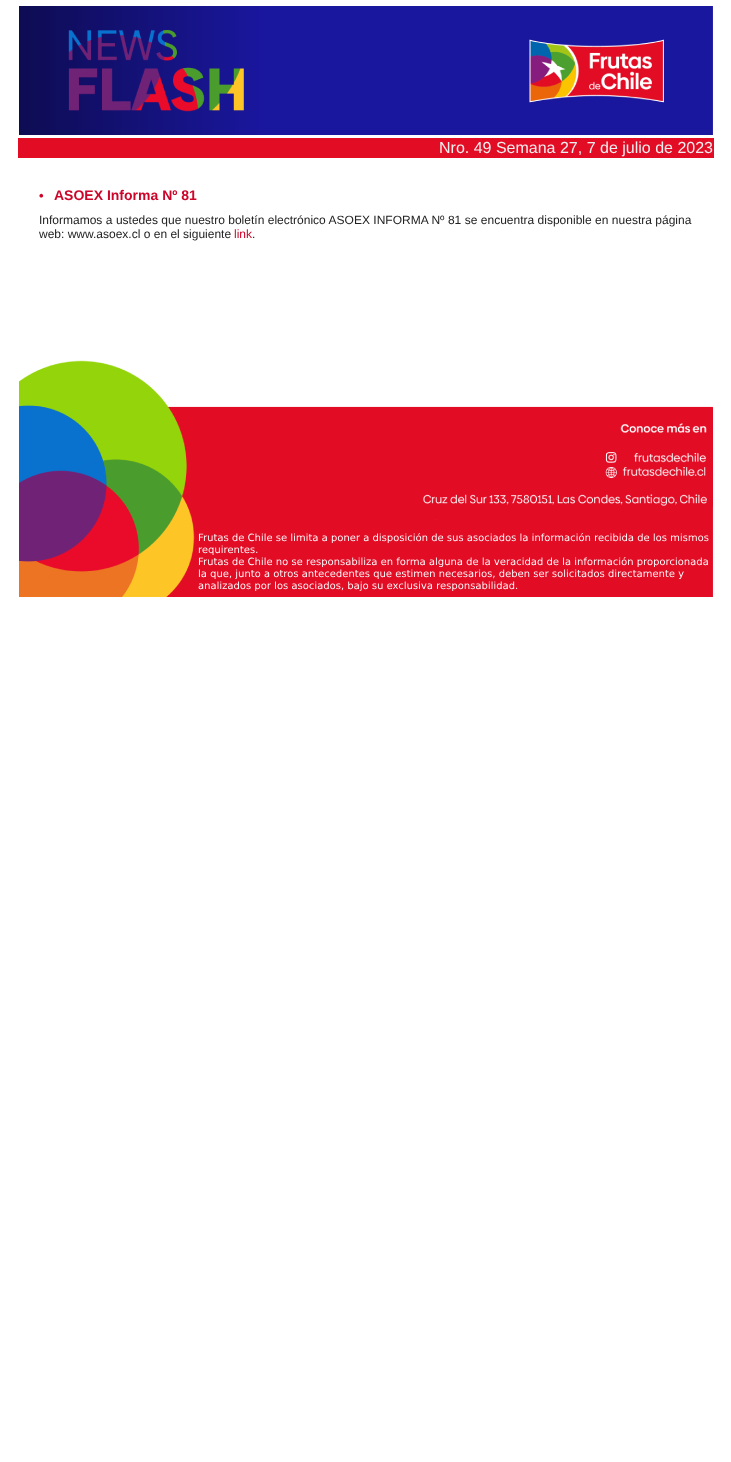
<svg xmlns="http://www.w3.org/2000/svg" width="731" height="1462">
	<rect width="100%" height="100%" fill="#FFFFFF" />
	<image x="19" y="6" width="694" height="129" href="assets/img1.png" />
	<rect x="18" y="138" width="696" height="20" fill="#E20C25" />
	<text x="439" y="153" font-family="Liberation Sans" font-size="16" fill="#EEEEEE">Nro. 49 Semana 27, 7 de julio de 2023</text>
	<text x="39" y="200" font-family="Liberation Sans" font-size="13" font-weight="700" fill="#CC062A">•</text>
	<text x="54" y="200" font-family="Liberation Sans" font-size="14" font-weight="700" fill="#CC062A">ASOEX Informa Nº 81</text>
	<g font-family="Liberation Sans" font-size="12" fill="#222222">
		<text x="39" y="224" word-spacing="0.1">Informamos a ustedes que nuestro boletín electrónico ASOEX INFORMA Nº 81 se encuentra disponible en nuestra página</text>
		<text x="39" y="238">web: www.asoex.cl o en el siguiente</text>
	</g>
	<text x="234" y="238" font-family="Liberation Sans" font-size="12" fill="#CC062A">link</text>
	<text x="252" y="238" font-family="Liberation Sans" font-size="12" fill="#222222">.</text>
	<image x="19" y="360" width="694" height="237" href="assets/img2.png" />
</svg>
